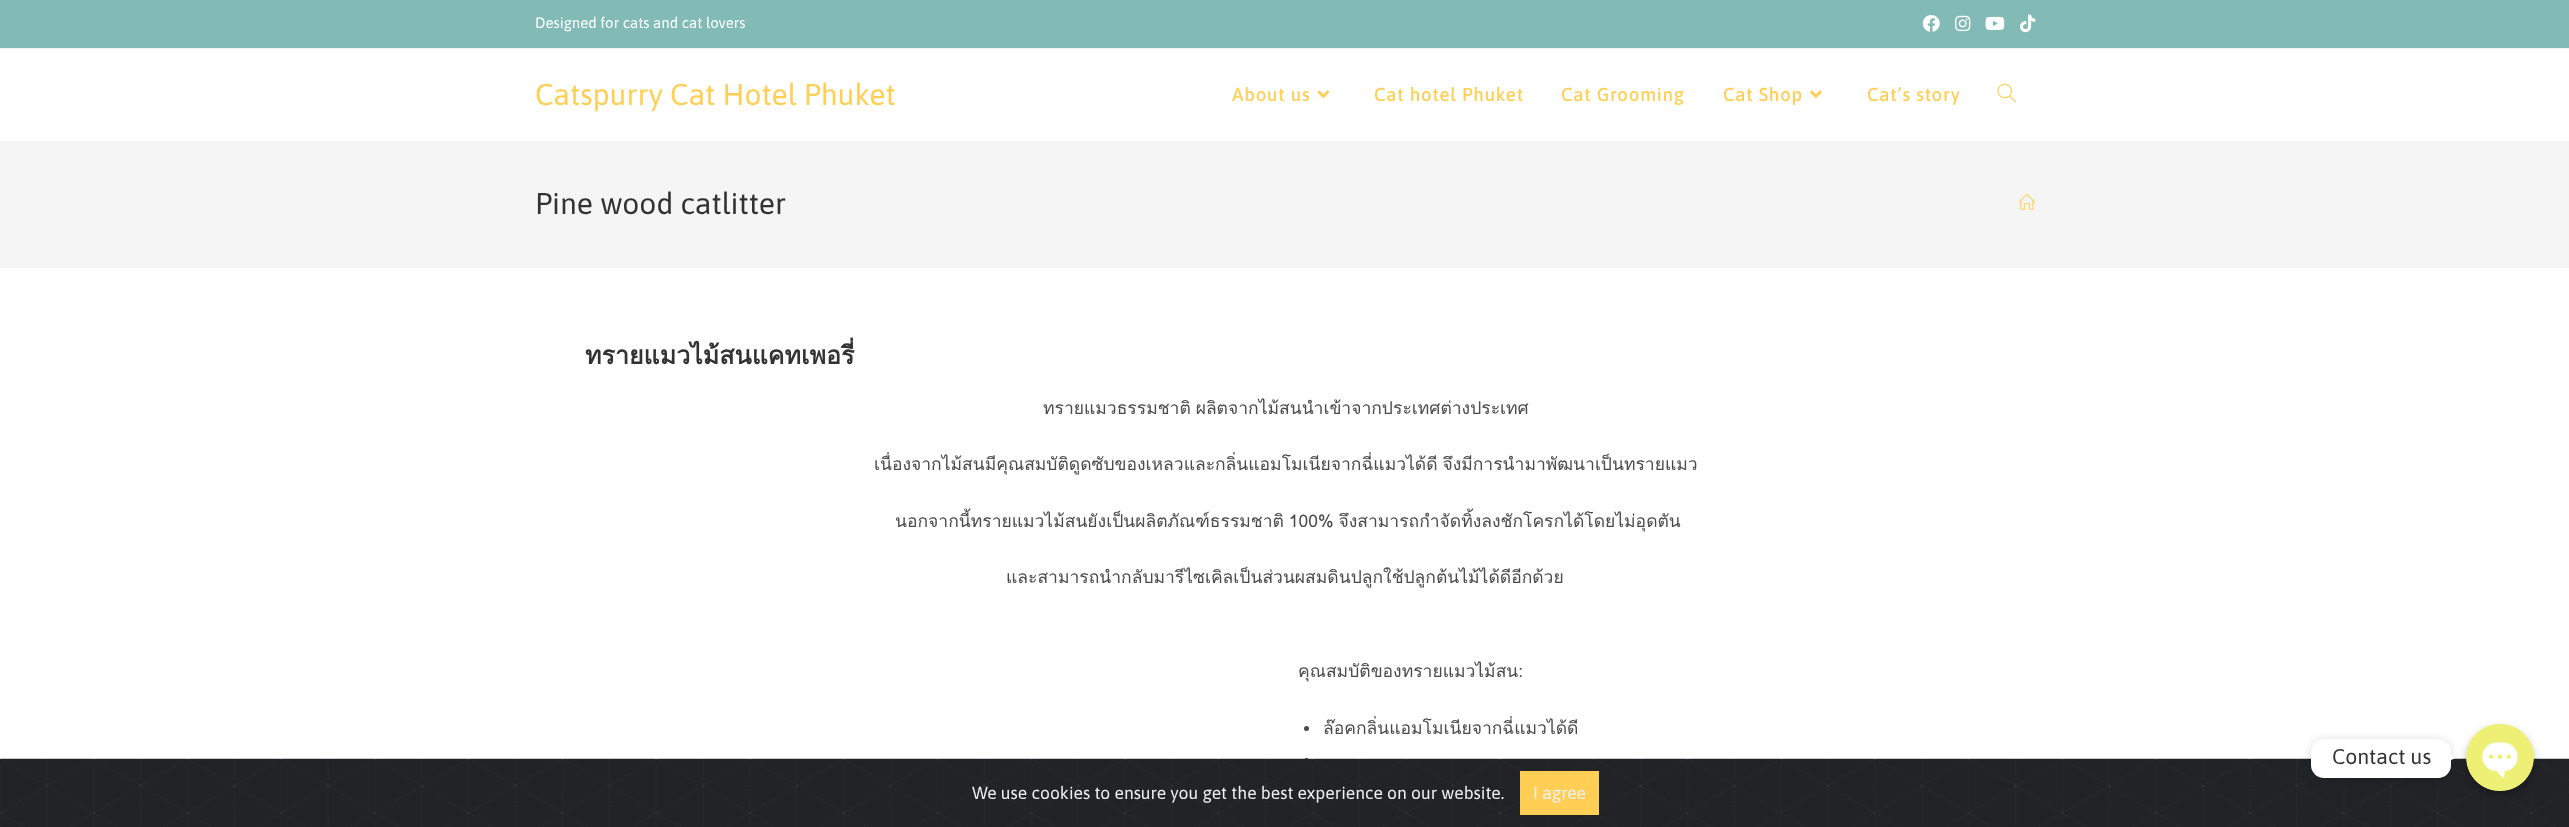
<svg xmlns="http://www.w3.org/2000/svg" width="2569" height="827">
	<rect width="100%" height="100%" fill="#FFFFFF" />
	<rect x="0" y="0" width="2569" height="48" fill="#82BAB6" />
	<rect x="0" y="48" width="2569" height="1" fill="#F1F1F1" />
	<text x="535" y="28" font-family="Asap" font-size="15" fill="#FFFFFF">Designed for cats and cat lovers</text>
	<image x="1922" y="15" width="18" height="17" href="assets/img1.png" />
	<image x="1955" y="15" width="16" height="17" href="assets/img2.png" />
	<image x="1985" y="16" width="20" height="14" href="assets/img3.png" />
	<image x="2020" y="14" width="16" height="19" href="assets/img4.png" />
	<text x="535" y="105" font-family="Asap" font-size="30" fill="#FFCF55">Catspurry Cat Hotel Phuket</text>
	<text x="1232" y="101" font-family="Asap" font-size="18.75" font-weight="500" letter-spacing="0.75" fill="#FFCF55">About us</text>
	<image x="1317" y="90" width="13" height="8" href="assets/img5.png" />
	<g font-family="Asap" font-size="18.75" font-weight="500" letter-spacing="0.75" fill="#FFCF55">
		<text x="1374" y="101">Cat hotel Phuket</text>
		<text x="1561" y="101">Cat Grooming</text>
		<text x="1723" y="101">Cat Shop</text>
	</g>
	<image x="1810" y="90" width="12" height="8" href="assets/img6.png" />
	<text x="1867" y="101" font-family="Asap" font-size="18.75" font-weight="500" letter-spacing="0.75" fill="#FFCF55">Cat’s story</text>
	<image x="1997" y="83" width="20" height="20" href="assets/img7.png" />
	<rect x="0" y="141" width="2569" height="127" fill="#F5F5F5" />
	<text x="535" y="214" font-family="Asap" font-size="30" fill="#333333">Pine wood catlitter</text>
	<image x="2019" y="193" width="16" height="17" href="assets/img8.png" />
	<text x="585" y="364" font-family="Loma" font-size="25" font-weight="700" fill="#333333">ทรายแมวไม้สนแคทเพอรี่</text>
	<g font-family="Loma" font-size="17.5" fill="#4A4A4A">
		<text x="1043" y="414" word-spacing="-1">ทรายแมวธรรมชาติ ผลิตจากไม้สนนำเข้าจากประเทศต่างประเทศ</text>
		<text x="874" y="470" word-spacing="-1">เนื่องจากไม้สนมีคุณสมบัติดูดซับของเหลวและกลิ่นแอมโมเนียจากฉี่แมวได้ดี จึงมีการนำมาพัฒนาเป็นทรายแมว</text>
		<text x="895" y="527" word-spacing="-1">นอกจากนี้ทรายแมวไม้สนยังเป็นผลิตภัณฑ์ธรรมชาติ 100% จึงสามารถกำจัดทิ้งลงชักโครกได้โดยไม่อุดตัน</text>
		<text x="1006" y="583">และสามารถนำกลับมารีไซเคิลเป็นส่วนผสมดินปลูกใช้ปลูกต้นไม้ได้ดีอีกด้วย</text>
		<text x="1298" y="677">คุณสมบัติของทรายแมวไม้สน:</text>
	</g>
	<circle cx="1306.5" cy="728.5" r="2.5" fill="#4A4A4A" />
	<text x="1323" y="734" font-family="Loma" font-size="17.5" fill="#4A4A4A">ล๊อคกลิ่นแอมโมเนียจากฉี่แมวได้ดี</text>
	<circle cx="1306.5" cy="760.5" r="2.5" fill="#4A4A4A" />
	<image x="0" y="758" width="2569" height="69" href="assets/img10.png" />
	<rect x="2466" y="728" width="68" height="67" rx="33.5" fill="#000000" fill-opacity="0.25" filter="blur(4px)" />
	<image x="2466" y="724" width="68" height="67" href="assets/img9.png" />
	<rect x="2311" y="740" width="140" height="39" rx="13" fill="#000000" fill-opacity="0.15" filter="blur(5px)" />
	<rect x="2311" y="739" width="140" height="39" rx="13" fill="#FFFFFF" />
	<text x="2332" y="764" font-family="Asap" font-size="21.25" fill="#333333">Contact us</text>
	<path d="M2444 764V751L2456 757.5Z" fill="#FFFFFF" />
	<text x="972" y="799" font-family="Asap" font-size="17.5" fill="#ECF0F1">We use cookies to ensure you get the best experience on our website.</text>
	<rect x="1520" y="771" width="79" height="44" fill="#FFCF55" />
	<text x="1533" y="799" font-family="Asap" font-size="17.5" fill="#ECF0F1">I agree</text>
</svg>
